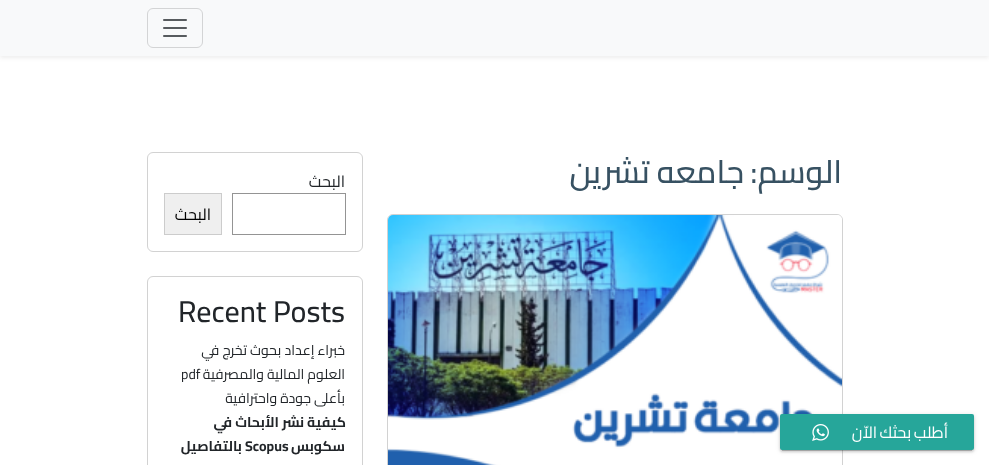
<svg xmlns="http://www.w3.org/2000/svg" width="989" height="465">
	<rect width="100%" height="100%" fill="#FFFFFF" />
	<rect x="387.5" y="214.5" width="455" height="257" rx="5.5" fill="none" stroke="#D2D2D2" />
	<image x="388" y="215" width="454" height="250" href="assets/img3.png" />
	<rect x="782" y="419" width="190" height="32" fill="#000000" fill-opacity="0.2" filter="blur(0.5px)" />
	<rect x="780" y="415" width="194" height="36" rx="2" fill="#000000" fill-opacity="0.12" filter="blur(2.5px)" />
	<rect x="780" y="416" width="194" height="36" rx="2" fill="#000000" fill-opacity="0.14" filter="blur(1px)" />
	<rect x="780" y="414" width="194" height="36" rx="2" fill="#26A69A" />
	<text x="948" y="438" word-spacing="-1" font-family="Cairo" font-size="16" letter-spacing="0.5" direction="rtl" fill="#FFFFFF">أطلب بحثك الاّن</text>
	<image x="812" y="424" width="17" height="17" href="assets/img1.png" />
	<rect x="0" y="2" width="989" height="56" fill="#000000" fill-opacity="0.07" filter="blur(2px)" />
	<rect x="0" y="0" width="989" height="56" fill="#F8F9FA" />
	<rect x="147.5" y="8.5" width="55" height="39" rx="5.5" fill="none" stroke="#D3D4D5" />
	<image x="163" y="19" width="24" height="18" href="assets/img2.png" />
	<g font-family="Cairo" font-size="32" font-weight="500" direction="rtl" fill="#375162">
		<text x="842" y="183">الوسم:</text>
		<text x="744" y="183">جامعه تشرين</text>
	</g>
	<rect x="147.5" y="152.5" width="215" height="99" rx="5.5" fill="none" stroke="#D2D2D2" />
	<text x="345" y="187" font-family="Cairo" font-size="16" direction="rtl" fill="#212529">البحث</text>
	<rect x="232.5" y="193.5" width="113" height="41" fill="none" stroke="#949494" />
	<rect x="164.5" y="193.5" width="57" height="41" fill="#EFEFEF" stroke="#CCCCCC" />
	<text x="211" y="220" font-family="Cairo" font-size="16" direction="rtl" fill="#000000">البحث</text>
	<rect x="147.5" y="276.5" width="215" height="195" rx="5.5" fill="none" stroke="#D2D2D2" />
	<text x="178" y="322" font-family="Cairo" font-size="30" font-weight="500" fill="#212529">Recent Posts</text>
	<g font-family="Cairo" font-size="14" direction="rtl" fill="#212529">
		<text x="345" y="355">خبراء إعداد بحوث تخرج في</text>
		<text x="345" y="379">العلوم المالية والمصرفية</text>
	</g>
	<text x="181" y="379" font-family="Cairo" font-size="14" fill="#212529">pdf</text>
	<text x="345" y="403" font-family="Cairo" font-size="14" direction="rtl" fill="#212529">بأعلى جودة واحترافية</text>
	<g font-family="Cairo" font-size="14" font-weight="700" direction="rtl" fill="#212529">
		<text x="346" y="427">كيفية نشر الأبحاث في</text>
		<text x="345" y="451">سكوبس</text>
	</g>
	<text x="245" y="451" font-family="Cairo" font-size="14" font-weight="700" fill="#212529">Scopus</text>
	<text x="242" y="451" font-family="Cairo" font-size="14" font-weight="700" direction="rtl" fill="#212529">بالتفاصيل</text>
</svg>
